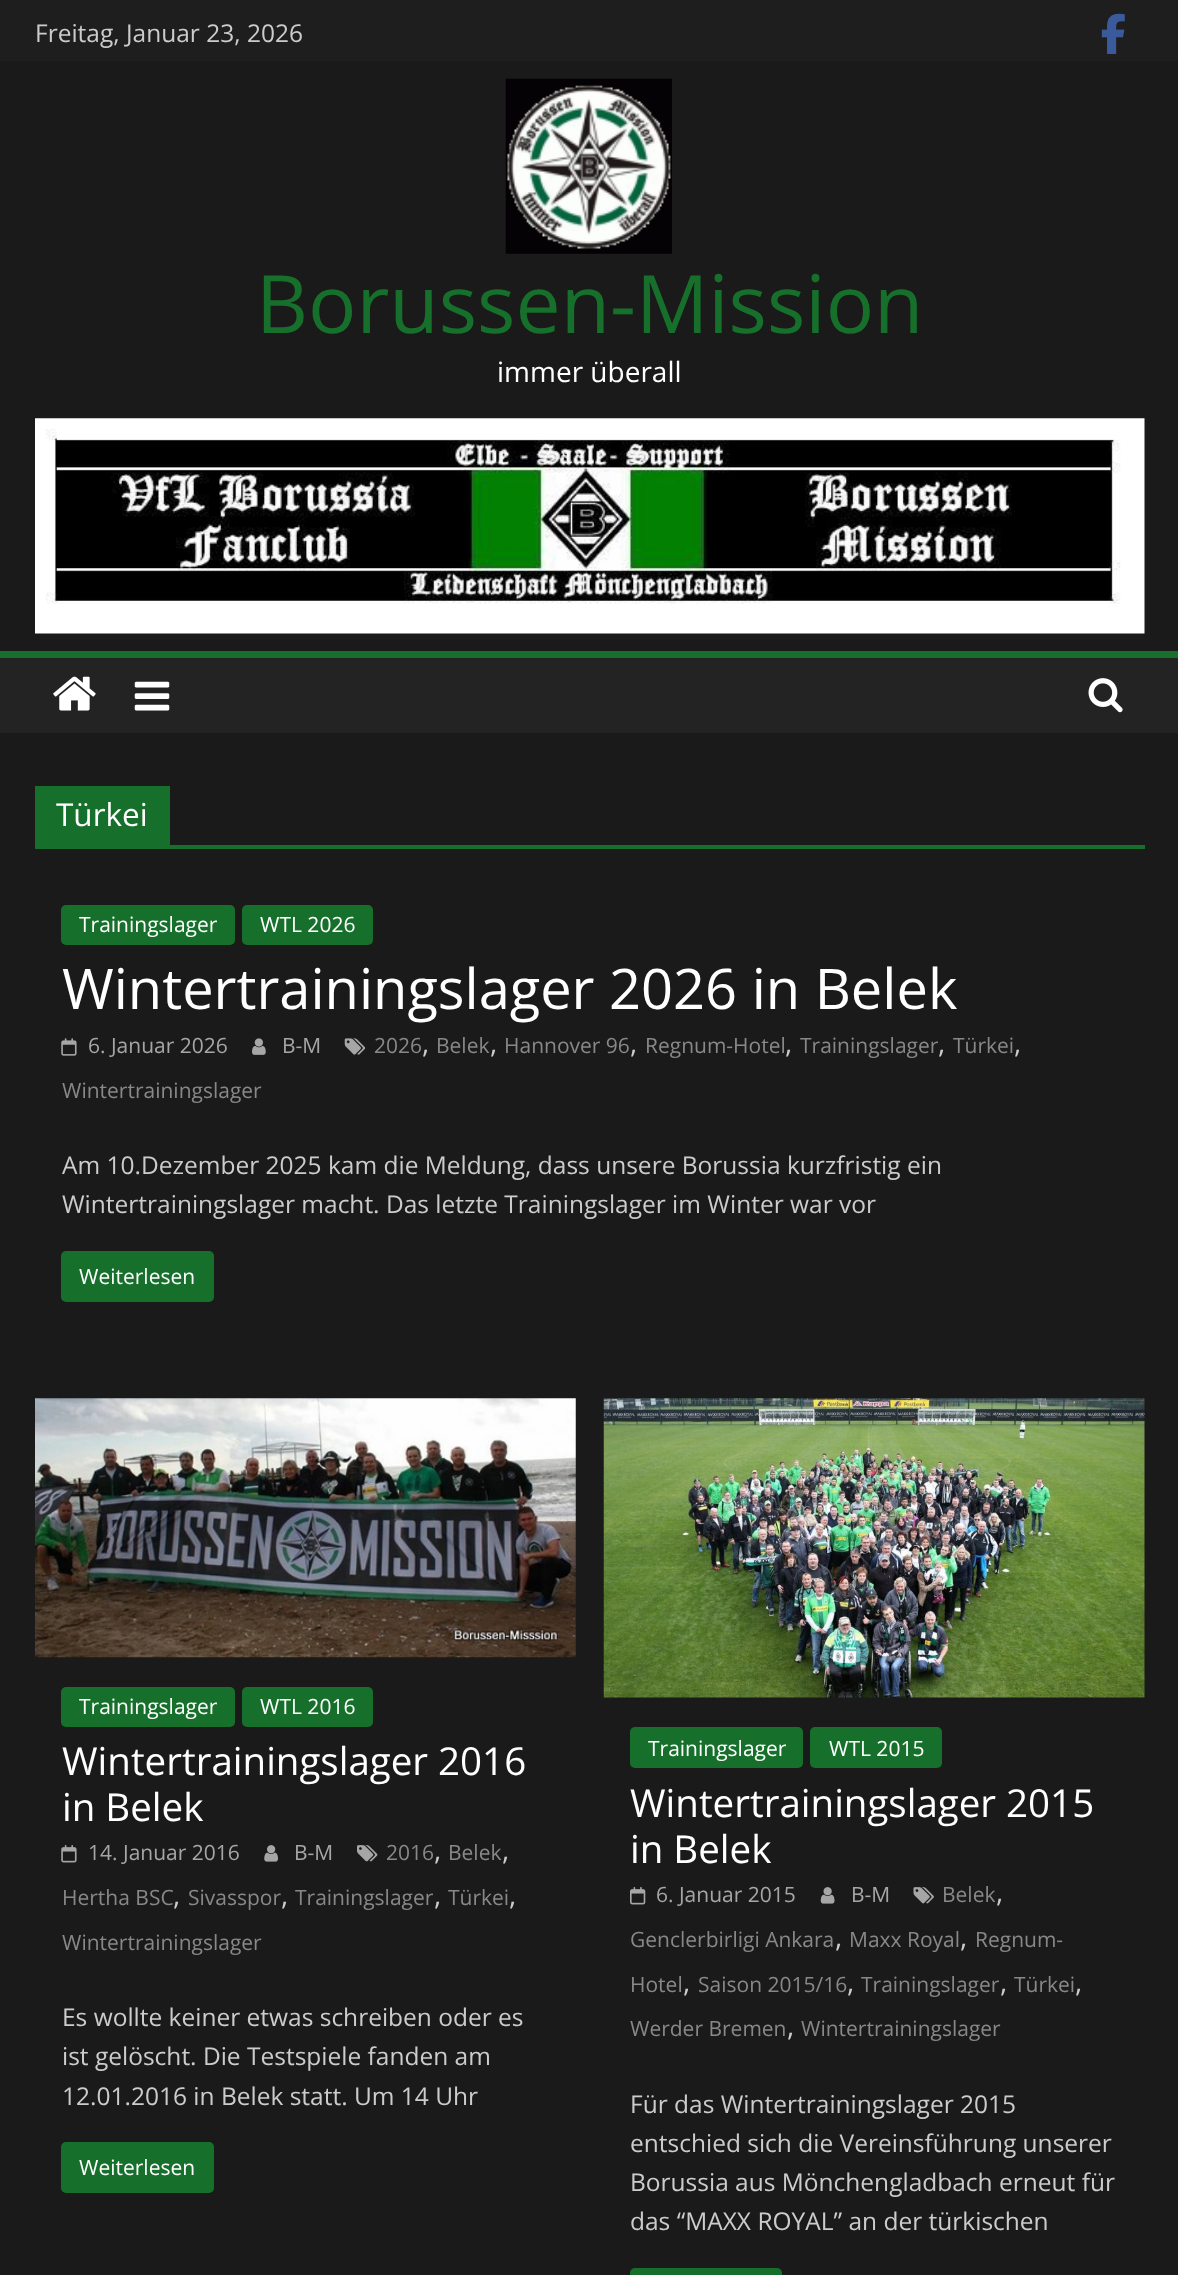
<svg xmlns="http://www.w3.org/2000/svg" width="1178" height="2275">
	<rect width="100%" height="100%" fill="#1A1A1A" />
	<rect x="0" y="0" width="1178" height="61" fill="#1E1E1E" />
	<text x="35" y="42" font-family="Open Sans" font-size="24.5" fill="#CCCCCC">Freitag, Januar 23, 2026</text>
	<image x="1101" y="13" width="24" height="41" href="assets/img1.png" />
	<image x="505" y="78" width="167" height="176" href="assets/img2.png" />
	<text x="256" y="333" font-family="Open Sans" font-size="80.5" fill="#16702B">Borussen-Mission</text>
	<text x="497" y="382" font-family="Open Sans" font-size="28" fill="#FFFFFF">immer überall</text>
	<image x="35" y="418" width="1110" height="216" href="assets/img3.png" />
	<rect x="0" y="658" width="1178" height="75" fill="#232323" />
	<rect x="0" y="651" width="1178" height="7" fill="#16702B" />
	<image x="53" y="676" width="43" height="35" href="assets/img4.png" />
	<image x="134" y="681" width="36" height="30" href="assets/img5.png" />
	<image x="1088" y="678" width="35" height="35" href="assets/img6.png" />
	<rect x="35" y="845" width="1110" height="4" fill="#16702B" />
	<rect x="35" y="786" width="135" height="59" fill="#16702B" />
	<text x="56" y="826" font-family="Open Sans" font-size="31.5" fill="#FFFFFF">Türkei</text>
	<rect x="61" y="905" width="174" height="40" rx="5" fill="#16702B" />
	<text x="79" y="932" font-family="Open Sans" font-size="21" fill="#FFFFFF">Trainingslager</text>
	<rect x="242" y="905" width="131" height="40" rx="5" fill="#16702B" />
	<text x="260" y="932" font-family="Open Sans" font-size="21" fill="#FFFFFF">WTL 2026</text>
	<text x="62" y="1009" font-family="Open Sans" font-size="56" fill="#FFFFFF">Wintertrainingslager 2026 in Belek</text>
	<image x="344" y="1038" width="22" height="17" href="assets/img7.png" />
	<text x="374" y="1053" font-family="Open Sans" font-size="21" fill="#888888">2026</text>
	<text x="422" y="1053" font-family="Open Sans" font-size="28" fill="#CCCCCC">,</text>
	<text x="436" y="1053" font-family="Open Sans" font-size="21" fill="#888888">Belek</text>
	<text x="490" y="1053" font-family="Open Sans" font-size="28" fill="#CCCCCC">,</text>
	<text x="504" y="1053" font-family="Open Sans" font-size="21" fill="#888888">Hannover 96</text>
	<text x="630" y="1053" font-family="Open Sans" font-size="28" fill="#CCCCCC">,</text>
	<text x="645" y="1053" font-family="Open Sans" font-size="21" fill="#888888">Regnum-Hotel</text>
	<text x="785" y="1053" font-family="Open Sans" font-size="28" fill="#CCCCCC">,</text>
	<text x="800" y="1053" font-family="Open Sans" font-size="21" fill="#888888">Trainingslager</text>
	<text x="938" y="1053" font-family="Open Sans" font-size="28" fill="#CCCCCC">,</text>
	<text x="953" y="1053" font-family="Open Sans" font-size="21" fill="#888888">Türkei</text>
	<text x="1014" y="1053" font-family="Open Sans" font-size="28" fill="#CCCCCC">,</text>
	<text x="62" y="1098" font-family="Open Sans" font-size="21" fill="#888888">Wintertrainingslager</text>
	<image x="61" y="1038" width="16" height="18" href="assets/img8.png" />
	<text x="88" y="1053" font-family="Open Sans" font-size="21" fill="#A6A6A6">6. Januar 2026</text>
	<image x="252" y="1038" width="14" height="17" href="assets/img9.png" />
	<text x="282" y="1053" font-family="Open Sans" font-size="21" fill="#A6A6A6">B-M</text>
	<g font-family="Open Sans" font-size="24.5" fill="#CCCCCC">
		<text x="62" y="1174">Am 10.Dezember 2025 kam die Meldung, dass unsere Borussia kurzfristig ein</text>
		<text x="62" y="1213">Wintertrainingslager macht. Das letzte Trainingslager im Winter war vor</text>
	</g>
	<rect x="61" y="1251" width="153" height="51" rx="5" fill="#16702B" />
	<text x="79" y="1284" font-family="Open Sans" font-size="21" fill="#FFFFFF">Weiterlesen</text>
	<image x="35" y="1398" width="541" height="260" href="assets/img10.png" />
	<rect x="61" y="1687" width="174" height="40" rx="5" fill="#16702B" />
	<text x="79" y="1714" font-family="Open Sans" font-size="21" fill="#FFFFFF">Trainingslager</text>
	<rect x="242" y="1687" width="131" height="40" rx="5" fill="#16702B" />
	<text x="260" y="1714" font-family="Open Sans" font-size="21" fill="#FFFFFF">WTL 2016</text>
	<g font-family="Open Sans" font-size="38.5" fill="#FFFFFF">
		<text x="62" y="1775">Wintertrainingslager 2016</text>
		<text x="62" y="1821">in Belek</text>
	</g>
	<image x="357" y="1845" width="21" height="17" href="assets/img11.png" />
	<text x="386" y="1860" font-family="Open Sans" font-size="21" fill="#888888">2016</text>
	<text x="434" y="1860" font-family="Open Sans" font-size="28" fill="#CCCCCC">,</text>
	<text x="448" y="1860" font-family="Open Sans" font-size="21" fill="#888888">Belek</text>
	<text x="502" y="1860" font-family="Open Sans" font-size="28" fill="#CCCCCC">,</text>
	<text x="62" y="1905" font-family="Open Sans" font-size="21" fill="#888888">Hertha BSC</text>
	<text x="173" y="1905" font-family="Open Sans" font-size="28" fill="#CCCCCC">,</text>
	<text x="188" y="1905" font-family="Open Sans" font-size="21" fill="#888888">Sivasspor</text>
	<text x="281" y="1905" font-family="Open Sans" font-size="28" fill="#CCCCCC">,</text>
	<text x="295" y="1905" font-family="Open Sans" font-size="21" fill="#888888">Trainingslager</text>
	<text x="434" y="1905" font-family="Open Sans" font-size="28" fill="#CCCCCC">,</text>
	<text x="448" y="1905" font-family="Open Sans" font-size="21" fill="#888888">Türkei</text>
	<text x="509" y="1905" font-family="Open Sans" font-size="28" fill="#CCCCCC">,</text>
	<text x="62" y="1950" font-family="Open Sans" font-size="21" fill="#888888">Wintertrainingslager</text>
	<image x="61" y="1845" width="16" height="18" href="assets/img12.png" />
	<text x="88" y="1860" font-family="Open Sans" font-size="21" fill="#A6A6A6">14. Januar 2016</text>
	<image x="264" y="1845" width="14" height="17" href="assets/img13.png" />
	<text x="294" y="1860" font-family="Open Sans" font-size="21" fill="#A6A6A6">B-M</text>
	<g font-family="Open Sans" font-size="24.5" fill="#CCCCCC">
		<text x="62" y="2026">Es wollte keiner etwas schreiben oder es</text>
		<text x="62" y="2065">ist gelöscht. Die Testspiele fanden am</text>
		<text x="62" y="2105">12.01.2016 in Belek statt. Um 14 Uhr</text>
	</g>
	<rect x="61" y="2142" width="153" height="51" rx="5" fill="#16702B" />
	<text x="79" y="2175" font-family="Open Sans" font-size="21" fill="#FFFFFF">Weiterlesen</text>
	<image x="603" y="1398" width="542" height="300" href="assets/img14.png" />
	<rect x="630" y="1727" width="173" height="41" rx="5" fill="#16702B" />
	<text x="648" y="1756" font-family="Open Sans" font-size="21" fill="#FFFFFF">Trainingslager</text>
	<rect x="810" y="1727" width="132" height="41" rx="5" fill="#16702B" />
	<text x="829" y="1756" font-family="Open Sans" font-size="21" fill="#FFFFFF">WTL 2015</text>
	<g font-family="Open Sans" font-size="38.5" fill="#FFFFFF">
		<text x="630" y="1817">Wintertrainingslager 2015</text>
		<text x="630" y="1863">in Belek</text>
	</g>
	<image x="913" y="1887" width="21" height="17" href="assets/img15.png" />
	<text x="942" y="1902" font-family="Open Sans" font-size="21" fill="#888888">Belek</text>
	<text x="996" y="1902" font-family="Open Sans" font-size="28" fill="#CCCCCC">,</text>
	<text x="630" y="1947" font-family="Open Sans" font-size="21" fill="#888888">Genclerbirligi Ankara</text>
	<text x="835" y="1947" font-family="Open Sans" font-size="28" fill="#CCCCCC">,</text>
	<text x="849" y="1947" font-family="Open Sans" font-size="21" fill="#888888">Maxx Royal</text>
	<text x="960" y="1947" font-family="Open Sans" font-size="28" fill="#CCCCCC">,</text>
	<g font-family="Open Sans" font-size="21" fill="#888888">
		<text x="975" y="1947">Regnum-</text>
		<text x="630" y="1992">Hotel</text>
	</g>
	<text x="683" y="1992" font-family="Open Sans" font-size="28" fill="#CCCCCC">,</text>
	<text x="698" y="1992" font-family="Open Sans" font-size="21" fill="#888888">Saison 2015/16</text>
	<text x="847" y="1992" font-family="Open Sans" font-size="28" fill="#CCCCCC">,</text>
	<text x="861" y="1992" font-family="Open Sans" font-size="21" fill="#888888">Trainingslager</text>
	<text x="1000" y="1992" font-family="Open Sans" font-size="28" fill="#CCCCCC">,</text>
	<text x="1014" y="1992" font-family="Open Sans" font-size="21" fill="#888888">Türkei</text>
	<text x="1075" y="1992" font-family="Open Sans" font-size="28" fill="#CCCCCC">,</text>
	<text x="630" y="2036" font-family="Open Sans" font-size="21" fill="#888888">Werder Bremen</text>
	<text x="787" y="2036" font-family="Open Sans" font-size="28" fill="#CCCCCC">,</text>
	<text x="801" y="2036" font-family="Open Sans" font-size="21" fill="#888888">Wintertrainingslager</text>
	<image x="630" y="1887" width="16" height="18" href="assets/img16.png" />
	<text x="656" y="1902" font-family="Open Sans" font-size="21" fill="#A6A6A6">6. Januar 2015</text>
	<image x="820" y="1887" width="15" height="17" href="assets/img17.png" />
	<text x="851" y="1902" font-family="Open Sans" font-size="21" fill="#A6A6A6">B-M</text>
	<g font-family="Open Sans" font-size="24.5" fill="#CCCCCC">
		<text x="630" y="2113">Für das Wintertrainingslager 2015</text>
		<text x="630" y="2152">entschied sich die Vereinsführung unserer</text>
		<text x="630" y="2191">Borussia aus Mönchengladbach erneut für</text>
		<text x="630" y="2230">das “MAXX ROYAL” an der türkischen</text>
	</g>
	<rect x="630" y="2268" width="152" height="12" rx="5" fill="#16702B" />
</svg>
